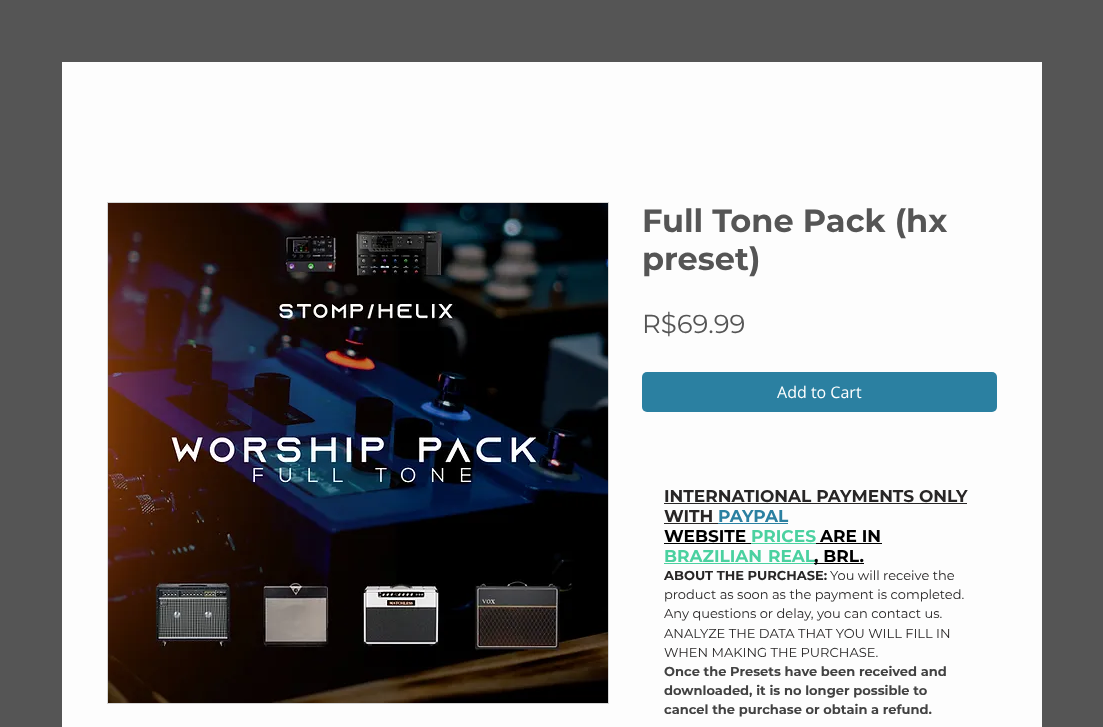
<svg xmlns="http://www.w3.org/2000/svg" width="1103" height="727">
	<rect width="100%" height="100%" fill="#555555" />
	<rect x="62" y="62" width="980" height="665" fill="#FDFDFD" />
	<rect x="107.5" y="202.5" width="501" height="501" fill="none" stroke="#D5D5D5" />
	<image x="108" y="203" width="500" height="500" href="assets/img1.png" />
	<g font-family="Montserrat" font-size="32" font-weight="700" fill="#555555">
		<text x="642" y="232">Full Tone Pack (hx</text>
		<text x="642" y="270">preset)</text>
	</g>
	<text x="642" y="333" font-family="Montserrat" font-size="26" fill="#555555">R$69.99</text>
	<rect x="642" y="372" width="355" height="40" rx="5" fill="#2B80A1" />
	<text x="777" y="398" font-family="Open Sans" font-size="16" fill="#FFFFFF">Add to Cart</text>
	<text x="664" y="502" font-family="Montserrat" font-size="17" font-weight="700" fill="#282626">INTERNATIONAL PAYMENTS ONLY</text>
	<rect x="664" y="503" width="303" height="1" fill="#282626" />
	<text x="664" y="522" font-family="Montserrat" font-size="17" font-weight="700" fill="#282626">WITH</text>
	<rect x="664" y="523" width="54" height="1" fill="#282626" />
	<text x="718" y="522" font-family="Montserrat" font-size="17" font-weight="700" fill="#2B80A1">PAYPAL</text>
	<rect x="718" y="523" width="70" height="1" fill="#2B80A1" />
	<text x="664" y="542" font-family="Montserrat" font-size="17" font-weight="700" fill="#000000">WEBSITE</text>
	<rect x="664" y="543" width="87" height="1" fill="#000000" />
	<text x="751" y="542" font-family="Montserrat" font-size="17" font-weight="700" fill="#4BD1A0">PRICES</text>
	<rect x="751" y="543" width="65" height="1" fill="#4BD1A0" />
	<text x="820" y="542" font-family="Montserrat" font-size="17" font-weight="700" fill="#000000">ARE IN</text>
	<rect x="816" y="543" width="66" height="1" fill="#000000" />
	<text x="664" y="562" word-spacing="1" font-family="Montserrat" font-size="17" font-weight="700" fill="#4BD1A0">BRAZILIAN REAL</text>
	<rect x="664" y="563" width="150" height="1" fill="#4BD1A0" />
	<rect x="814" y="563" width="50" height="1" fill="#000000" />
	<text x="814" y="562" font-family="Montserrat" font-size="17" font-weight="700" fill="#000000">, BRL.</text>
	<text x="664" y="580" font-family="Montserrat" font-size="13" font-weight="700" fill="#282626">ABOUT THE PURCHASE:</text>
	<g font-family="Montserrat" font-size="13" fill="#282626">
		<text x="830" y="580">You will receive the</text>
		<text x="664" y="599">product as soon as the payment is completed.</text>
		<text x="664" y="618">Any questions or delay, you can contact us.</text>
		<text x="664" y="638">ANALYZE THE DATA THAT YOU WILL FILL IN</text>
		<text x="664" y="657">WHEN MAKING THE PURCHASE.</text>
	</g>
	<g font-family="Montserrat" font-size="13" font-weight="700" fill="#424242">
		<text x="664" y="676">Once the Presets have been received and</text>
		<text x="664" y="695">downloaded, it is no longer possible to</text>
		<text x="664" y="714">cancel the purchase or obtain a refund.</text>
	</g>
</svg>
